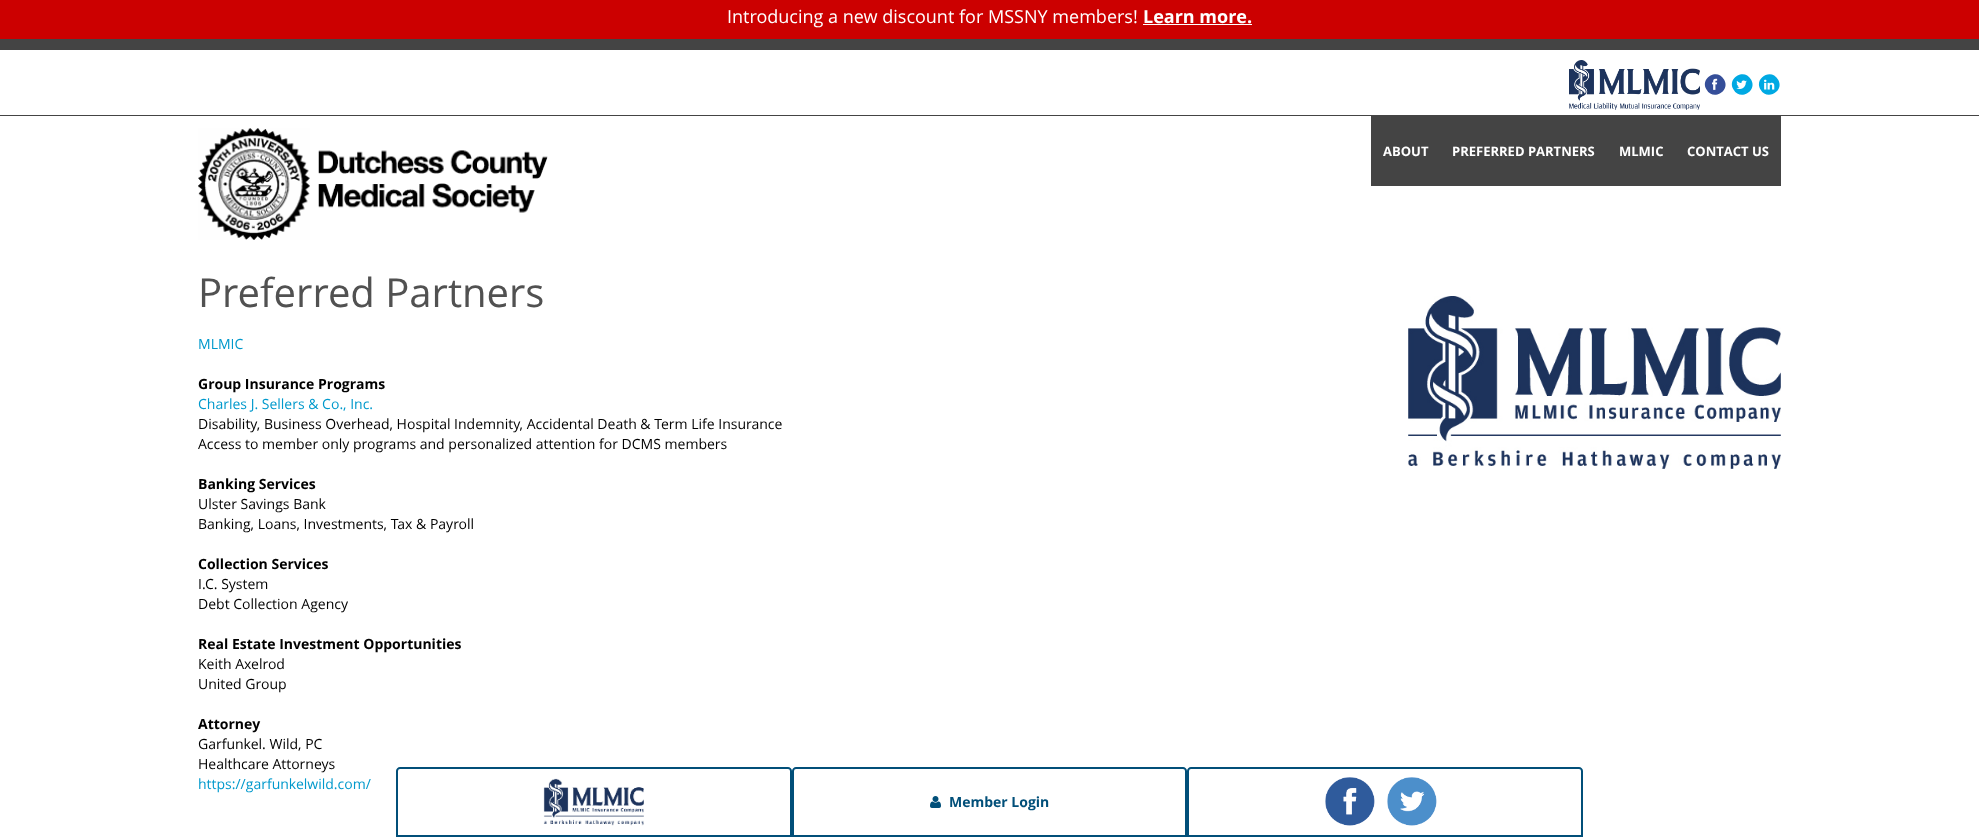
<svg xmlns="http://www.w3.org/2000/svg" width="1979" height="837">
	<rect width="100%" height="100%" fill="#FFFFFF" />
	<rect x="0" y="0" width="1979" height="39" fill="#CC0000" />
	<text x="727" y="23" font-family="Open Sans" font-size="18" fill="#FFFFFF">Introducing a new discount for MSSNY members!</text>
	<text x="1143" y="23" font-family="Open Sans" font-size="18" font-weight="700" fill="#FFFFFF">Learn more.</text>
	<rect x="1143" y="24" width="109" height="1" fill="#FFFFFF" />
	<rect x="0" y="115" width="1979" height="1" fill="#444444" />
	<rect x="0" y="39" width="1979" height="11" fill="#444444" />
	<image x="1569" y="60" width="131" height="50" href="assets/img1.png" />
	<path d="M1724 79.5C1731 91 1713 101.5 1706.5 89.5C1699.5 78 1717.5 67.5 1724 79.5Z" fill="#354E99" />
	<image x="1712" y="78" width="6" height="12" href="assets/img2.png" />
	<path d="M1751 79.5C1758 91 1740 101.5 1733.5 89.5C1726.5 78 1744.5 67.5 1751 79.5Z" fill="#00A9E3" />
	<image x="1736" y="80" width="11" height="9" href="assets/img3.png" />
	<path d="M1778 79.5C1785 91 1767 101.5 1760.5 89.5C1753.5 78 1771.5 67.5 1778 79.5Z" fill="#00A9E3" />
	<image x="1764" y="79" width="11" height="11" href="assets/img4.png" />
	<image x="198" y="128" width="350" height="112" href="assets/img5.png" />
	<rect x="1371" y="116" width="410" height="70" fill="#444444" />
	<g font-family="Open Sans" font-size="13" font-weight="700" fill="#FFFFFF">
		<text x="1383" y="156">ABOUT</text>
		<text x="1452" y="156">PREFERRED PARTNERS</text>
		<text x="1619" y="156">MLMIC</text>
		<text x="1687" y="156">CONTACT US</text>
	</g>
	<text x="198" y="307" font-family="Open Sans" font-size="40" fill="#515151">Preferred Partners</text>
	<text x="198" y="349" font-family="Open Sans" font-size="14" fill="#0099CC">MLMIC</text>
	<text x="198" y="389" font-family="Open Sans" font-size="14" font-weight="700" fill="#000000">Group Insurance Programs</text>
	<text x="198" y="409" font-family="Open Sans" font-size="14" fill="#0099CC">Charles J. Sellers &amp; Co., Inc.</text>
	<g font-family="Open Sans" font-size="14" fill="#000000">
		<text x="198" y="429">Disability, Business Overhead, Hospital Indemnity, Accidental Death &amp; Term Life Insurance</text>
		<text x="198" y="449">Access to member only programs and personalized attention for DCMS members</text>
	</g>
	<text x="198" y="489" font-family="Open Sans" font-size="14" font-weight="700" fill="#000000">Banking Services</text>
	<g font-family="Open Sans" font-size="14" fill="#000000">
		<text x="198" y="509">Ulster Savings Bank</text>
		<text x="198" y="529">Banking, Loans, Investments, Tax &amp; Payroll</text>
	</g>
	<text x="198" y="569" font-family="Open Sans" font-size="14" font-weight="700" fill="#000000">Collection Services</text>
	<g font-family="Open Sans" font-size="14" fill="#000000">
		<text x="198" y="589">I.C. System</text>
		<text x="198" y="609">Debt Collection Agency</text>
	</g>
	<text x="198" y="649" font-family="Open Sans" font-size="14" font-weight="700" fill="#000000">Real Estate Investment Opportunities</text>
	<g font-family="Open Sans" font-size="14" fill="#000000">
		<text x="198" y="669">Keith Axelrod</text>
		<text x="198" y="689">United Group</text>
	</g>
	<text x="198" y="729" font-family="Open Sans" font-size="14" font-weight="700" fill="#000000">Attorney</text>
	<g font-family="Open Sans" font-size="14" fill="#000000">
		<text x="198" y="749">Garfunkel. Wild, PC</text>
		<text x="198" y="769">Healthcare Attorneys</text>
	</g>
	<text x="198" y="789" font-family="Open Sans" font-size="14" fill="#0099CC">https://garfunkelwild.com/</text>
	<image x="1408" y="296" width="373" height="173" href="assets/img6.png" />
	<path d="M400 768H788C789.5 768 791 769.5 791 771V836H397V771C397 769.5 398.5 768 400 768Z" fill="none" stroke="#014F79" stroke-width="2" />
	<image x="543" y="778" width="101" height="48" href="assets/img7.png" />
	<path d="M796 768H1183C1184.5 768 1186 769.5 1186 771V836H793V771C793 769.5 794.5 768 796 768Z" fill="none" stroke="#014F79" stroke-width="2" />
	<image x="930" y="796" width="11" height="12" href="assets/img8.png" />
	<text x="949" y="807" font-family="Open Sans" font-size="14" font-weight="700" fill="#014F79">Member Login</text>
	<path d="M1191 768H1579C1580.5 768 1582 769.5 1582 771V836H1188V771C1188 769.5 1189.5 768 1191 768Z" fill="none" stroke="#014F79" stroke-width="2" />
	<image x="1325" y="777" width="50" height="49" href="assets/img9.png" />
	<image x="1387" y="777" width="50" height="49" href="assets/img10.png" />
</svg>
